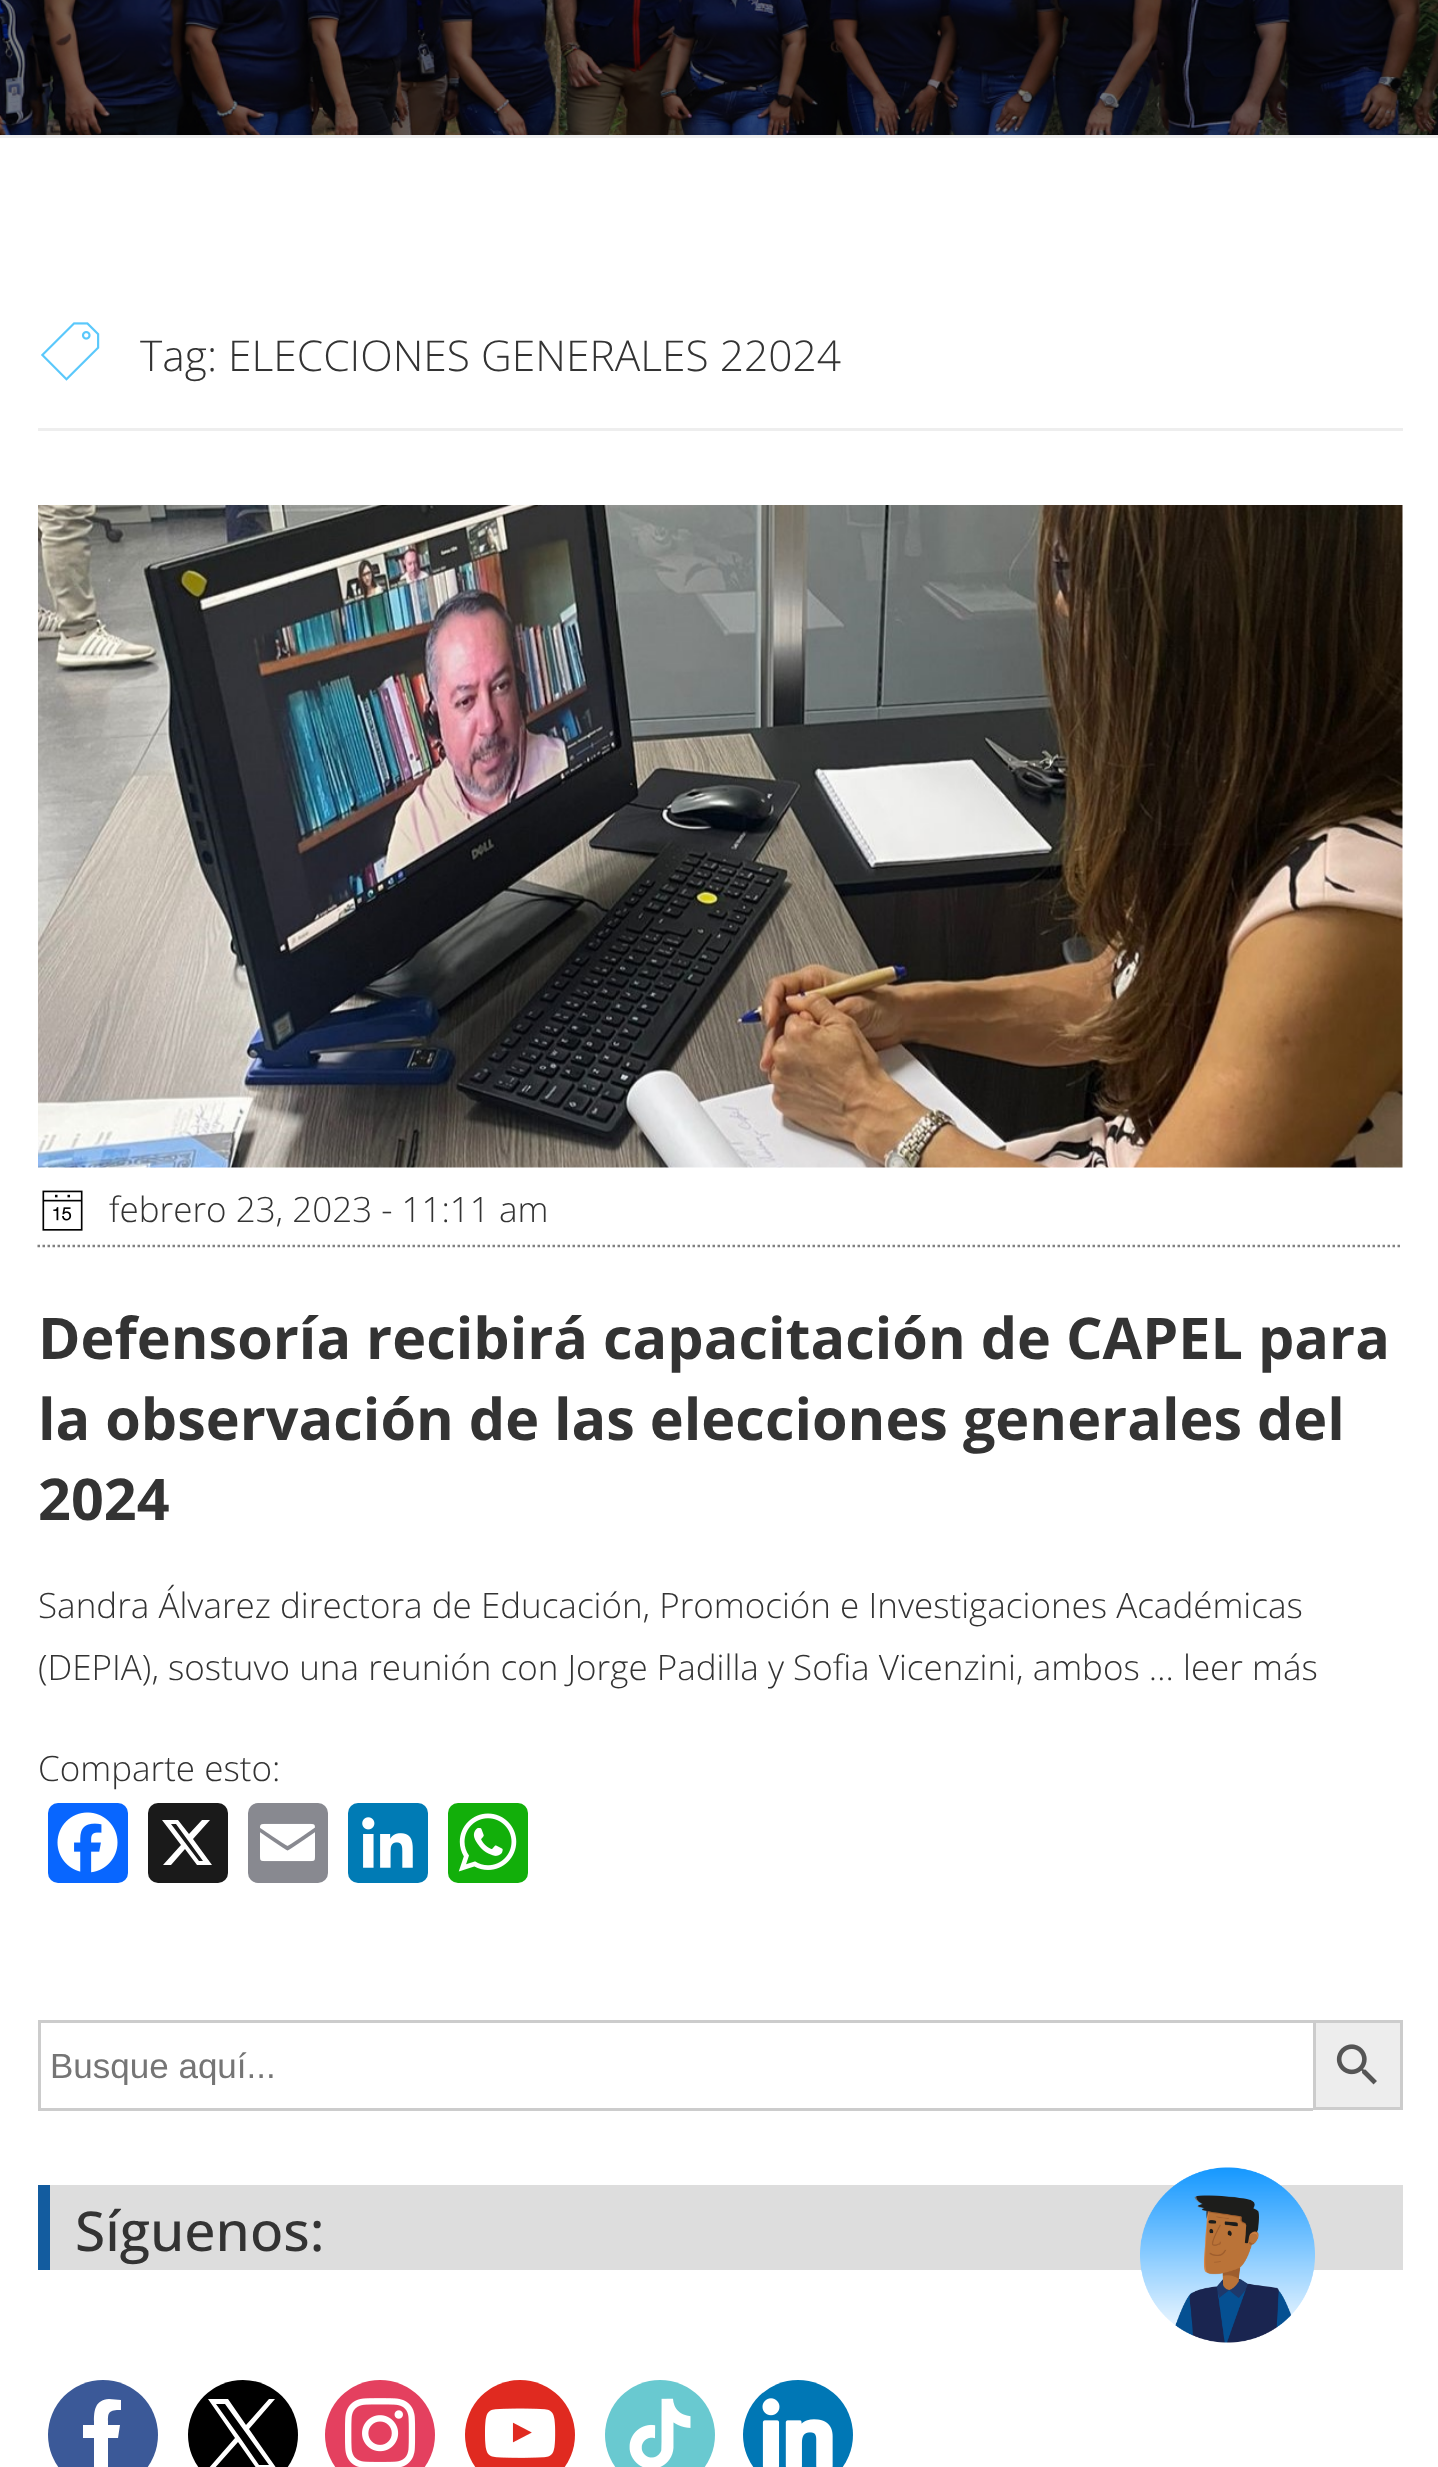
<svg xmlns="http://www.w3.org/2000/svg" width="1438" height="2467">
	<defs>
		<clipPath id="clip1"><rect x="40" y="2045" width="1273" height="40" /></clipPath>
	</defs>
	<rect width="100%" height="100%" fill="#FFFFFF" />
	<image x="0" y="0" width="1438" height="135" href="assets/img1.png" />
	<rect x="0" y="135" width="1438" height="3" fill="#EEEEEE" />
	<rect x="38" y="428" width="1365" height="3" fill="#EEEEEE" />
	<image x="41" y="322" width="59" height="59" href="assets/img2.png" />
	<text x="140" y="371" font-family="Open Sans" font-size="42.5" font-weight="300" fill="#333333">Tag: ELECCIONES GENERALES 22024</text>
	<image x="38" y="505" width="1365" height="663" href="assets/img3.png" />
	<path d="M37.5 1246H1402.5" fill="none" stroke="#808080" stroke-width="2.5" stroke-dasharray="2.5 2.5" />
	<image x="42" y="1190" width="41" height="41" href="assets/img4.png" />
	<text x="109" y="1222" font-family="Open Sans" font-size="35" font-weight="300" fill="#333333">febrero 23, 2023 - 11:11 am</text>
	<g font-family="Open Sans" font-size="57.5" font-weight="700" fill="#333333">
		<text x="38" y="1359">Defensoría recibirá capacitación de CAPEL para</text>
		<text x="38" y="1440">la observación de las elecciones generales del</text>
		<text x="38" y="1520">2024</text>
	</g>
	<g font-family="Open Sans" font-size="35" font-weight="300" fill="#333333">
		<text x="38" y="1618">Sandra Álvarez directora de Educación, Promoción e Investigaciones Académicas</text>
		<text x="38" y="1680">(DEPIA), sostuvo una reunión con Jorge Padilla y Sofia Vicenzini, ambos … leer más</text>
		<text x="38" y="1781">Comparte esto:</text>
	</g>
	<rect x="48" y="1803" width="80" height="80" rx="10" fill="#0866FF" />
	<image x="57" y="1812" width="61" height="61" href="assets/img5.png" />
	<rect x="148" y="1803" width="80" height="80" rx="10" fill="#1A1A1A" />
	<path d="M202 1820H210L193 1839L212 1865H197L185 1849L171 1865H163L181 1845L162 1820H178L189 1834ZM199 1861H203L176 1824H171Z" fill="#FFFFFF" />
	<rect x="248" y="1803" width="80" height="80" rx="10" fill="#888990" />
	<image x="260" y="1823" width="55" height="39" href="assets/img6.png" />
	<rect x="348" y="1803" width="80" height="80" rx="10" fill="#007BB5" />
	<image x="362" y="1817" width="51" height="51" href="assets/img7.png" />
	<rect x="448" y="1803" width="80" height="80" rx="10" fill="#12AF0A" />
	<image x="458" y="1813" width="59" height="59" href="assets/img8.png" />
	<rect x="38" y="2020" width="1275" height="3" fill="#CCCCCC" />
	<rect x="38" y="2108" width="1275" height="3" fill="#CCCCCC" />
	<rect x="38" y="2020" width="3" height="90" fill="#CCCCCC" />
	<g clip-path="url(#clip1)">
		<text x="50" y="2078" font-family="Liberation Sans" font-size="35" fill="#757575">Busque aquí...</text>
	</g>
	<rect x="1314.5" y="2021.5" width="87" height="87" fill="#EDEDED" stroke="#CCCCCC" stroke-width="3" />
	<image x="1336" y="2044" width="41" height="41" href="assets/img9.png" />
	<rect x="50" y="2185" width="1353" height="85" fill="#DDDDDD" />
	<rect x="38" y="2185" width="12" height="85" fill="#135C9F" />
	<text x="75" y="2251" font-family="Open Sans" font-size="55" font-weight="500" fill="#333333">Síguenos:</text>
	<circle cx="103" cy="2435" r="55" fill="#3B5998" />
	<path d="M118 2438L120 2425H108C108 2413 107 2410 121 2410V2400L109 2399C93 2400 94 2414 94 2425H83V2438H94V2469H108V2438Z" fill="#FFFFFF" />
	<circle cx="243" cy="2435" r="55" fill="#000000" />
	<path d="M249 2429L275 2399H269L246 2425L228 2399H208L235 2438L208 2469H214L238 2442L257 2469H277ZM241 2439L216 2404H225L269 2465H259Z" fill="#FFFFFF" />
	<circle cx="380" cy="2435" r="55" fill="#E4405F" />
	<image x="345" y="2398" width="71" height="69" href="assets/img10.png" />
	<circle cx="520" cy="2435" r="55" fill="#E02A20" />
	<image x="485" y="2408" width="71" height="50" href="assets/img11.png" />
	<circle cx="660" cy="2435" r="55" fill="#69C9D0" />
	<image x="629" y="2398" width="62" height="69" href="assets/img12.png" />
	<circle cx="798" cy="2435" r="55" fill="#0077B5" />
	<image x="762" y="2398" width="71" height="69" href="assets/img13.png" />
	<image x="1140" y="2167" width="175" height="176" href="assets/img14.png" />
</svg>
